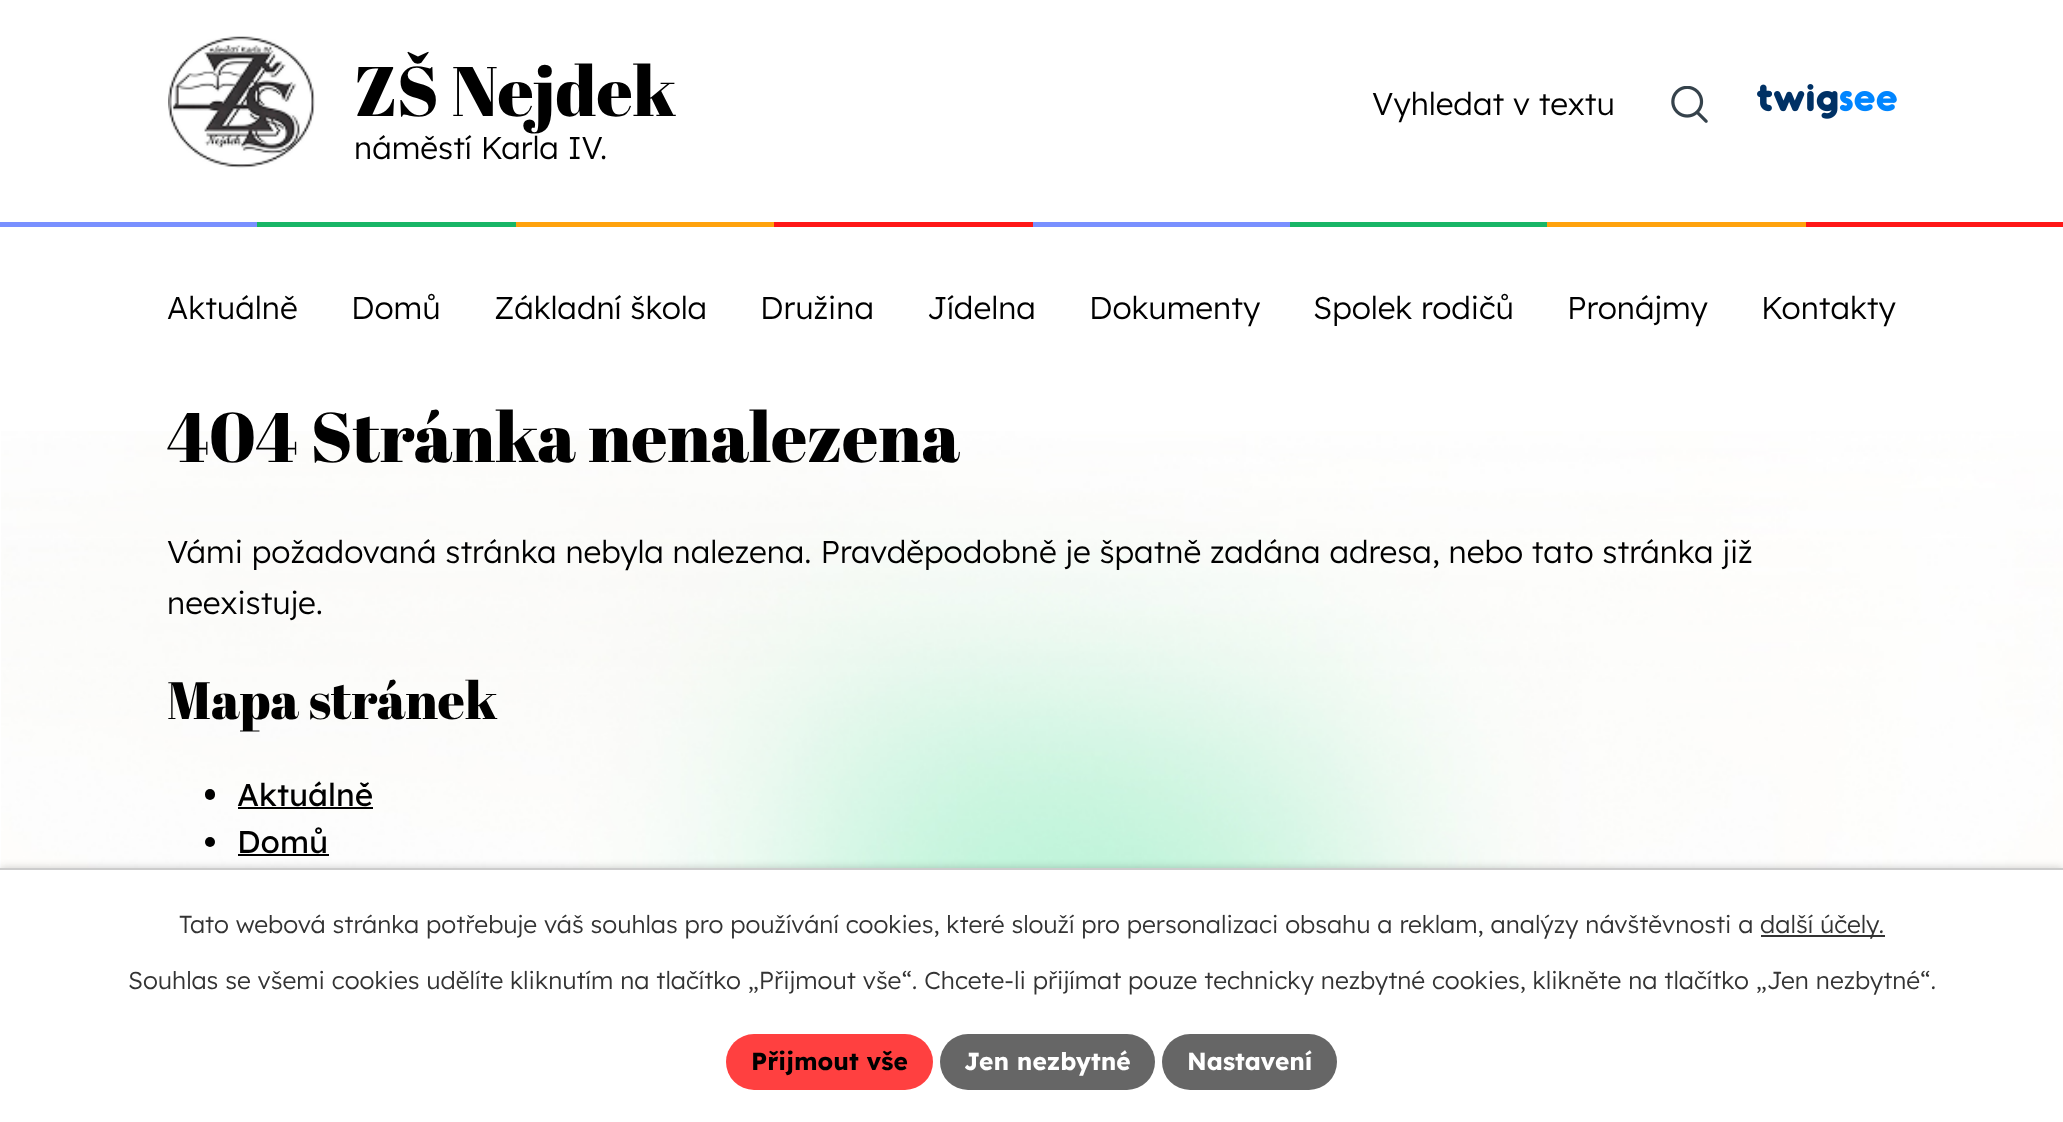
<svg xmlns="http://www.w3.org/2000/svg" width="2063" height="1122">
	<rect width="100%" height="100%" fill="#FFFFFF" />
	<image x="168" y="36" width="147" height="132" href="assets/img1.png" />
	<text x="354" y="116" font-family="Abril Fatface" font-size="70" fill="#000000">ZŠ Nejdek</text>
	<g font-family="Lexend" font-size="31.5" font-weight="300" fill="#000000">
		<text x="354" y="159">náměstí Karla IV.</text>
		<text x="1372" y="115">Vyhledat v textu</text>
	</g>
	<image x="1671" y="86" width="37" height="37" href="assets/img2.png" />
	<image x="1757" y="84" width="140" height="35" href="assets/img3.png" />
	<rect x="0" y="222" width="257" height="5" fill="#7990FF" />
	<rect x="257" y="222" width="259" height="5" fill="#18B566" />
	<rect x="516" y="222" width="258" height="5" fill="#FFA20D" />
	<rect x="774" y="222" width="259" height="5" fill="#FF1717" />
	<rect x="1033" y="222" width="257" height="5" fill="#7990FF" />
	<rect x="1290" y="222" width="257" height="5" fill="#18B566" />
	<rect x="1547" y="222" width="259" height="5" fill="#FFA20D" />
	<rect x="1806" y="222" width="257" height="5" fill="#FF1717" />
	<g font-family="Lexend" font-size="31.5" font-weight="300" fill="#000000">
		<text x="167" y="319">Aktuálně</text>
		<text x="351" y="319">Domů</text>
		<text x="494" y="319">Základní škola</text>
		<text x="760" y="319">Družina</text>
		<text x="927" y="319">Jídelna</text>
		<text x="1089" y="319">Dokumenty</text>
		<text x="1313" y="319">Spolek rodičů</text>
		<text x="1567" y="319">Pronájmy</text>
		<text x="1761" y="319">Kontakty</text>
	</g>
	<image x="1" y="431" width="2062" height="437" href="assets/img4.png" />
	<text x="167" y="462" font-family="Abril Fatface" font-size="70" fill="#000000">404 Stránka nenalezena</text>
	<g font-family="Lexend" font-size="31.5" font-weight="300" fill="#000000">
		<text x="167" y="563">Vámi požadovaná stránka nebyla nalezena. Pravděpodobně je špatně zadána adresa, nebo tato stránka již</text>
		<text x="167" y="614">neexistuje.</text>
	</g>
	<text x="167" y="719" font-family="Abril Fatface" font-size="52.5" fill="#000000">Mapa stránek</text>
	<rect x="205" y="789" width="10" height="11" rx="5" fill="#000000" />
	<text x="237" y="806" font-family="Lexend" font-size="31.5" fill="#000000">Aktuálně</text>
	<rect x="238" y="807" width="135" height="2" fill="#000000" />
	<circle cx="210" cy="842" r="5" fill="#000000" />
	<text x="237" y="853" font-family="Lexend" font-size="31.5" fill="#000000">Domů</text>
	<rect x="238" y="854" width="91" height="2" fill="#000000" />
	<rect x="0" y="868" width="2063" height="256" fill="#000000" fill-opacity="0.2" filter="blur(4.5px)" />
	<rect x="0" y="870" width="2063" height="252" fill="#FFFFFF" />
	<rect x="0" y="868" width="2063" height="2" fill="#CCCCCC" />
	<text x="179" y="933" font-family="Lexend" font-size="24.5" font-weight="300" fill="#333333">Tato webová stránka potřebuje váš souhlas pro používání cookies, které slouží pro personalizaci obsahu a reklam, analýzy návštěvnosti a</text>
	<rect x="1761" y="935" width="124" height="2" fill="#333333" />
	<g font-family="Lexend" font-size="24.5" font-weight="300" fill="#333333">
		<text x="1760" y="933">další účely.</text>
		<text x="128" y="989">Souhlas se všemi cookies udělíte kliknutím na tlačítko „Přijmout vše“. Chcete-li přijímat pouze technicky nezbytné cookies, klikněte na tlačítko „Jen nezbytné“.</text>
	</g>
	<rect x="726" y="1034" width="207" height="56" rx="28" fill="#FF4040" />
	<text x="751" y="1070" font-family="Lexend" font-size="24.5" font-weight="700" fill="#000000">Přijmout vše</text>
	<rect x="940" y="1034" width="215" height="56" rx="28" fill="#666666" />
	<text x="964" y="1070" font-family="Lexend" font-size="24.5" font-weight="700" fill="#FFFFFF">Jen nezbytné</text>
	<rect x="1162" y="1034" width="175" height="56" rx="28" fill="#666666" />
	<text x="1187" y="1070" font-family="Lexend" font-size="24.5" font-weight="700" fill="#FFFFFF">Nastavení</text>
</svg>
